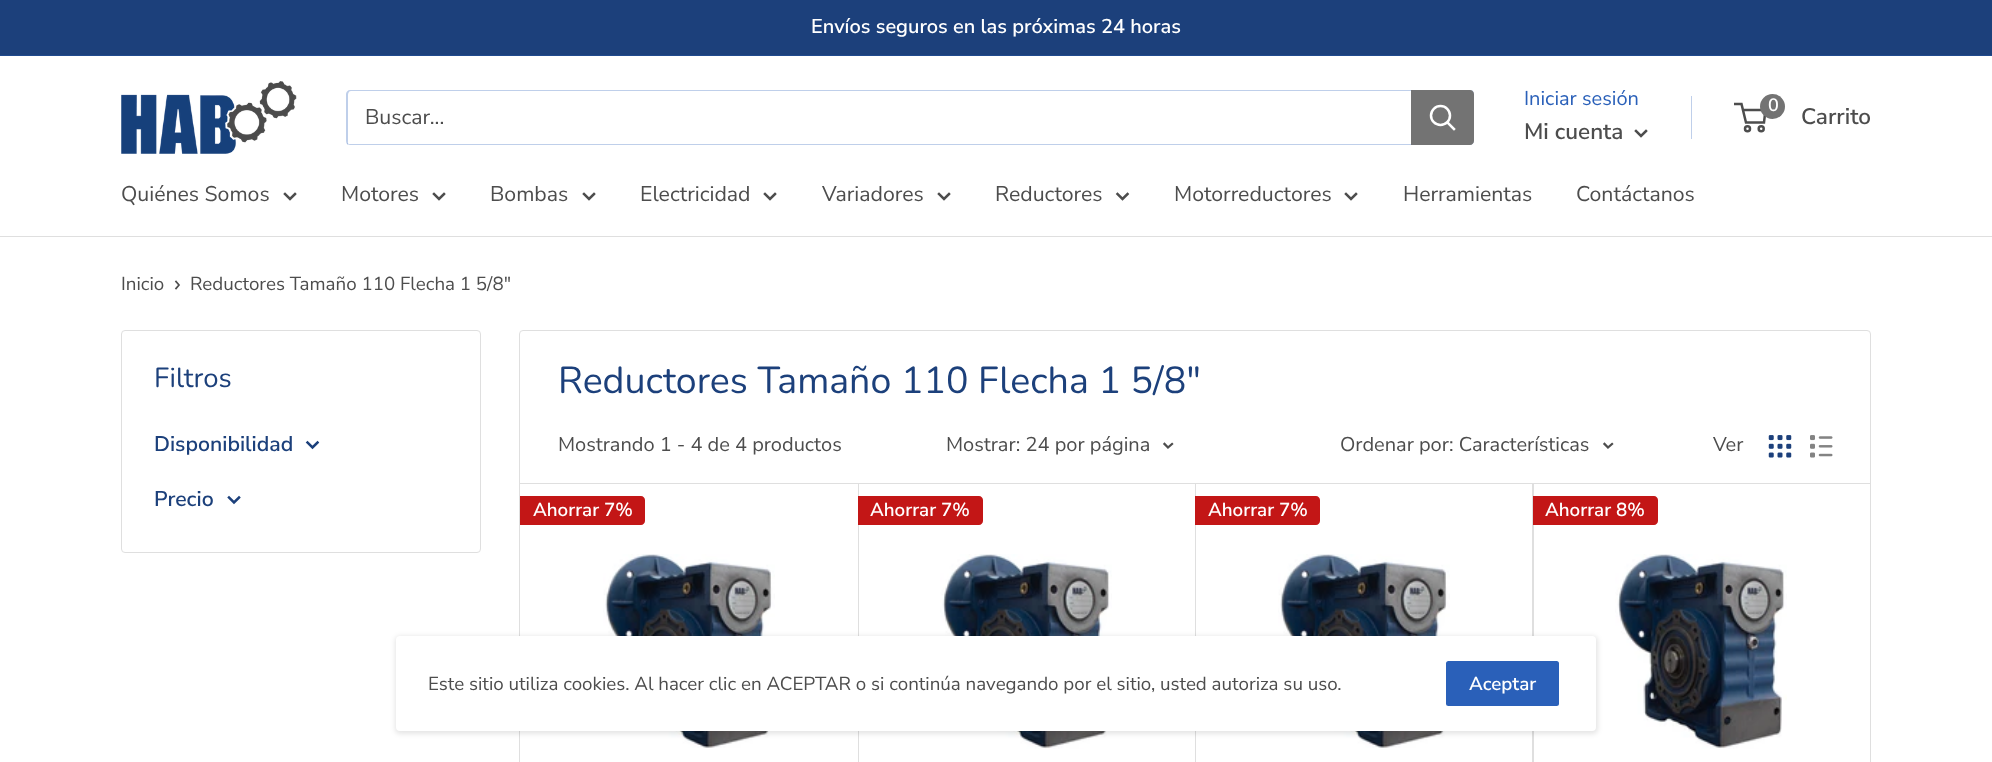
<svg xmlns="http://www.w3.org/2000/svg" width="1992" height="762">
	<rect width="100%" height="100%" fill="#FFFFFF" />
	<rect x="0" y="0" width="1992" height="55" fill="#1C407B" />
	<rect x="0" y="55" width="1992" height="1" fill="#204A8E" />
	<text x="811" y="33" font-family="Nunito Sans" font-size="20" font-weight="600" fill="#FFFFFF">Envíos seguros en las próximas 24 horas</text>
	<image x="121" y="81" width="176" height="73" href="assets/img1.png" />
	<path d="M347 143C347 144 349 145 350 145H1470C1472 145 1474 143 1474 141V94C1474 92 1473 91 1472 90V141C1472 142 1471 143 1470 144H349Z" fill="#BFCFEA" />
	<path d="M351 91H1471L1473 92C1473 91 1471 90 1470 90H350C348 90 346 92 346 94V141C346 143 347 144 348 145V142V95C348 93 349 91 351 91Z" fill="#2A60B9" fill-opacity="0.3" />
	<text x="365" y="124" font-family="Nunito Sans" font-size="21.25" fill="#4D4D4D">Buscar...</text>
	<path d="M1411 90H1470C1472 90 1474 92 1474 94V141C1474 143 1472 145 1470 145H1411Z" fill="#737373" />
	<path d="M1454 129L1447.5 122.5" fill="none" stroke="#FFFFFF" stroke-width="2.5" stroke-linecap="square" />
	<circle cx="1440.5" cy="115.5" r="9.5" fill="none" stroke="#FFFFFF" stroke-width="2.5" />
	<text x="1524" y="105" font-family="Nunito Sans" font-size="20" fill="#2A60B9">Iniciar sesión</text>
	<rect x="1691" y="96" width="1" height="43" fill="#BFCFEA" />
	<text x="1524" y="139" font-family="Nunito Sans" font-size="22.5" font-weight="600" fill="#4D4D4D">Mi cuenta</text>
	<path d="M1646 131L1641 136L1636 131" fill="none" stroke="#4D4D4D" stroke-width="2.5" stroke-linecap="square" />
	<circle cx="1747.5" cy="128.8" r="2.5" fill="none" stroke="#4D4D4D" stroke-width="2.5" />
	<circle cx="1761.2" cy="128.8" r="2.5" fill="none" stroke="#4D4D4D" stroke-width="2.5" />
	<path d="M1743 110H1765.5L1764 122.5H1746L1741.5 104H1734" fill="none" stroke="#4D4D4D" stroke-width="2.5" />
	<circle cx="1772.5" cy="106.5" r="12.5" fill="#737373" />
	<text x="1768" y="111" font-family="Nunito Sans" font-size="18" font-weight="600" fill="#FFFFFF">0</text>
	<text x="1801" y="124" font-family="Nunito Sans" font-size="22.5" font-weight="600" fill="#4D4D4D">Carrito</text>
	<rect x="0" y="236" width="1992" height="1" fill="#DFDFDF" />
	<text x="121" y="201" font-family="Nunito Sans" font-size="21.25" fill="#4D4D4D">Quiénes Somos</text>
	<path d="M295 194L290 199L285 194" fill="none" stroke="#4D4D4D" stroke-width="2.5" stroke-linecap="square" />
	<text x="341" y="201" font-family="Nunito Sans" font-size="21.25" fill="#4D4D4D">Motores</text>
	<path d="M444 194L439 199L434 194" fill="none" stroke="#4D4D4D" stroke-width="2.5" stroke-linecap="square" />
	<text x="490" y="201" font-family="Nunito Sans" font-size="21.25" fill="#4D4D4D">Bombas</text>
	<path d="M594 194L589 199L584 194" fill="none" stroke="#4D4D4D" stroke-width="2.5" stroke-linecap="square" />
	<text x="640" y="201" font-family="Nunito Sans" font-size="21.25" fill="#4D4D4D">Electricidad</text>
	<path d="M775 194L770 199L765 194" fill="none" stroke="#4D4D4D" stroke-width="2.5" stroke-linecap="square" />
	<text x="822" y="201" font-family="Nunito Sans" font-size="21.25" fill="#4D4D4D">Variadores</text>
	<path d="M949 194L944 199L939 194" fill="none" stroke="#4D4D4D" stroke-width="2.5" stroke-linecap="square" />
	<text x="995" y="201" font-family="Nunito Sans" font-size="21.25" fill="#4D4D4D">Reductores</text>
	<path d="M1127.5 194L1122.5 199L1117.5 194" fill="none" stroke="#4D4D4D" stroke-width="2.5" stroke-linecap="square" />
	<text x="1174" y="201" font-family="Nunito Sans" font-size="21.25" fill="#4D4D4D">Motorreductores</text>
	<path d="M1356 194L1351 199L1346 194" fill="none" stroke="#4D4D4D" stroke-width="2.5" stroke-linecap="square" />
	<g font-family="Nunito Sans" font-size="21.25" fill="#4D4D4D">
		<text x="1403" y="201">Herramientas</text>
		<text x="1576" y="201">Contáctanos</text>
	</g>
	<text x="121" y="290" font-family="Nunito Sans" font-size="18.75" fill="#4D4D4D">Inicio</text>
	<path d="M176 281.5L179 285L176 288.5" fill="none" stroke="#4D4D4D" stroke-width="1.7" stroke-linecap="square" />
	<text x="190" y="290" font-family="Nunito Sans" font-size="18.75" fill="#4D4D4D">Reductores Tamaño 110 Flecha 1 5/8"</text>
	<rect x="121.5" y="330.5" width="359" height="222" rx="3.5" fill="none" stroke="#DFDFDF" />
	<text x="154" y="387" font-family="Nunito" font-size="27.5" fill="#1C407B">Filtros</text>
	<text x="154" y="451" font-family="Nunito Sans" font-size="21.25" font-weight="600" fill="#1C407B">Disponibilidad</text>
	<path d="M317.5 442.5L312.5 447.5L307.5 442.5" fill="none" stroke="#1C407B" stroke-width="2.5" stroke-linecap="square" />
	<text x="154" y="506" font-family="Nunito Sans" font-size="21.25" font-weight="600" fill="#1C407B">Precio</text>
	<path d="M239 497.5L234 502.5L229 497.5" fill="none" stroke="#1C407B" stroke-width="2.5" stroke-linecap="square" />
	<rect x="519.5" y="330.5" width="1351" height="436" rx="3.5" fill="none" stroke="#DFDFDF" />
	<text x="558" y="393" font-family="Nunito" font-size="37.5" fill="#1C407B">Reductores Tamaño 110 Flecha 1 5/8"</text>
	<rect x="858" y="483" width="1" height="279" fill="#DFDFDF" />
	<rect x="1195" y="483" width="1" height="279" fill="#DFDFDF" />
	<rect x="1532" y="483" width="2" height="279" fill="#DFDFDF" />
	<rect x="520" y="483" width="1350" height="1" fill="#DFDFDF" />
	<g font-family="Nunito Sans" font-size="20" fill="#4D4D4D">
		<text x="558" y="451">Mostrando 1 - 4 de 4 productos</text>
		<text x="946" y="451">Mostrar: 24 por página</text>
	</g>
	<path d="M1172 444L1168 447.5L1164.5 444" fill="none" stroke="#4D4D4D" stroke-width="2.3" stroke-linecap="square" />
	<text x="1340" y="451" font-family="Nunito Sans" font-size="20" fill="#4D4D4D">Ordenar por: Características</text>
	<path d="M1612 444L1608 447.5L1604.5 444" fill="none" stroke="#4D4D4D" stroke-width="2.3" stroke-linecap="square" />
	<text x="1713" y="451" font-family="Nunito Sans" font-size="20" fill="#4D4D4D">Ver</text>
	<image x="1768" y="435" width="24" height="23" href="assets/img2.png" />
	<image x="1810" y="435" width="23" height="23" href="assets/img3.png" />
	<path d="M520 496H641C643 496 645 498 645 500V521C645 523 643 525 641 525H520Z" fill="#C31616" />
	<text x="533" y="516" font-family="Nunito Sans" font-size="18.75" font-weight="600" fill="#FFFFFF">Ahorrar 7%</text>
	<image x="603" y="554" width="172" height="194" href="assets/img4.png" />
	<path d="M858 496H979C981 496 983 498 983 500V521C983 523 981 525 979 525H858Z" fill="#C31616" />
	<text x="870" y="516" font-family="Nunito Sans" font-size="18.75" font-weight="600" fill="#FFFFFF">Ahorrar 7%</text>
	<image x="940" y="554" width="172" height="195" href="assets/img5.png" />
	<path d="M1195 496H1316C1318 496 1320 498 1320 500V521C1320 523 1318 525 1316 525H1195Z" fill="#C31616" />
	<text x="1208" y="516" font-family="Nunito Sans" font-size="18.75" font-weight="600" fill="#FFFFFF">Ahorrar 7%</text>
	<image x="1278" y="554" width="172" height="194" href="assets/img4.png" />
	<path d="M1533 496H1654C1656 496 1658 498 1658 500V521C1658 523 1656 525 1654 525H1533Z" fill="#C31616" />
	<text x="1545" y="516" font-family="Nunito Sans" font-size="18.75" font-weight="600" fill="#FFFFFF">Ahorrar 8%</text>
	<image x="1615" y="554" width="172" height="195" href="assets/img5.png" />
	<rect x="395" y="636" width="1203" height="98" rx="5" fill="#000000" fill-opacity="0.1" filter="blur(2.5px)" />
	<rect x="396" y="636" width="1200" height="95" rx="4" fill="#FFFFFF" />
	<text x="428" y="690" font-family="Nunito Sans" font-size="18.75" fill="#4D4D4D">Este sitio utiliza cookies. Al hacer clic en ACEPTAR o si continúa navegando por el sitio, usted autoriza su uso.</text>
	<rect x="1446" y="661" width="113" height="45" rx="2.5" fill="#2A60B9" />
	<text x="1469" y="690" font-family="Nunito Sans" font-size="18.75" font-weight="600" fill="#FFFFFF">Aceptar</text>
</svg>
